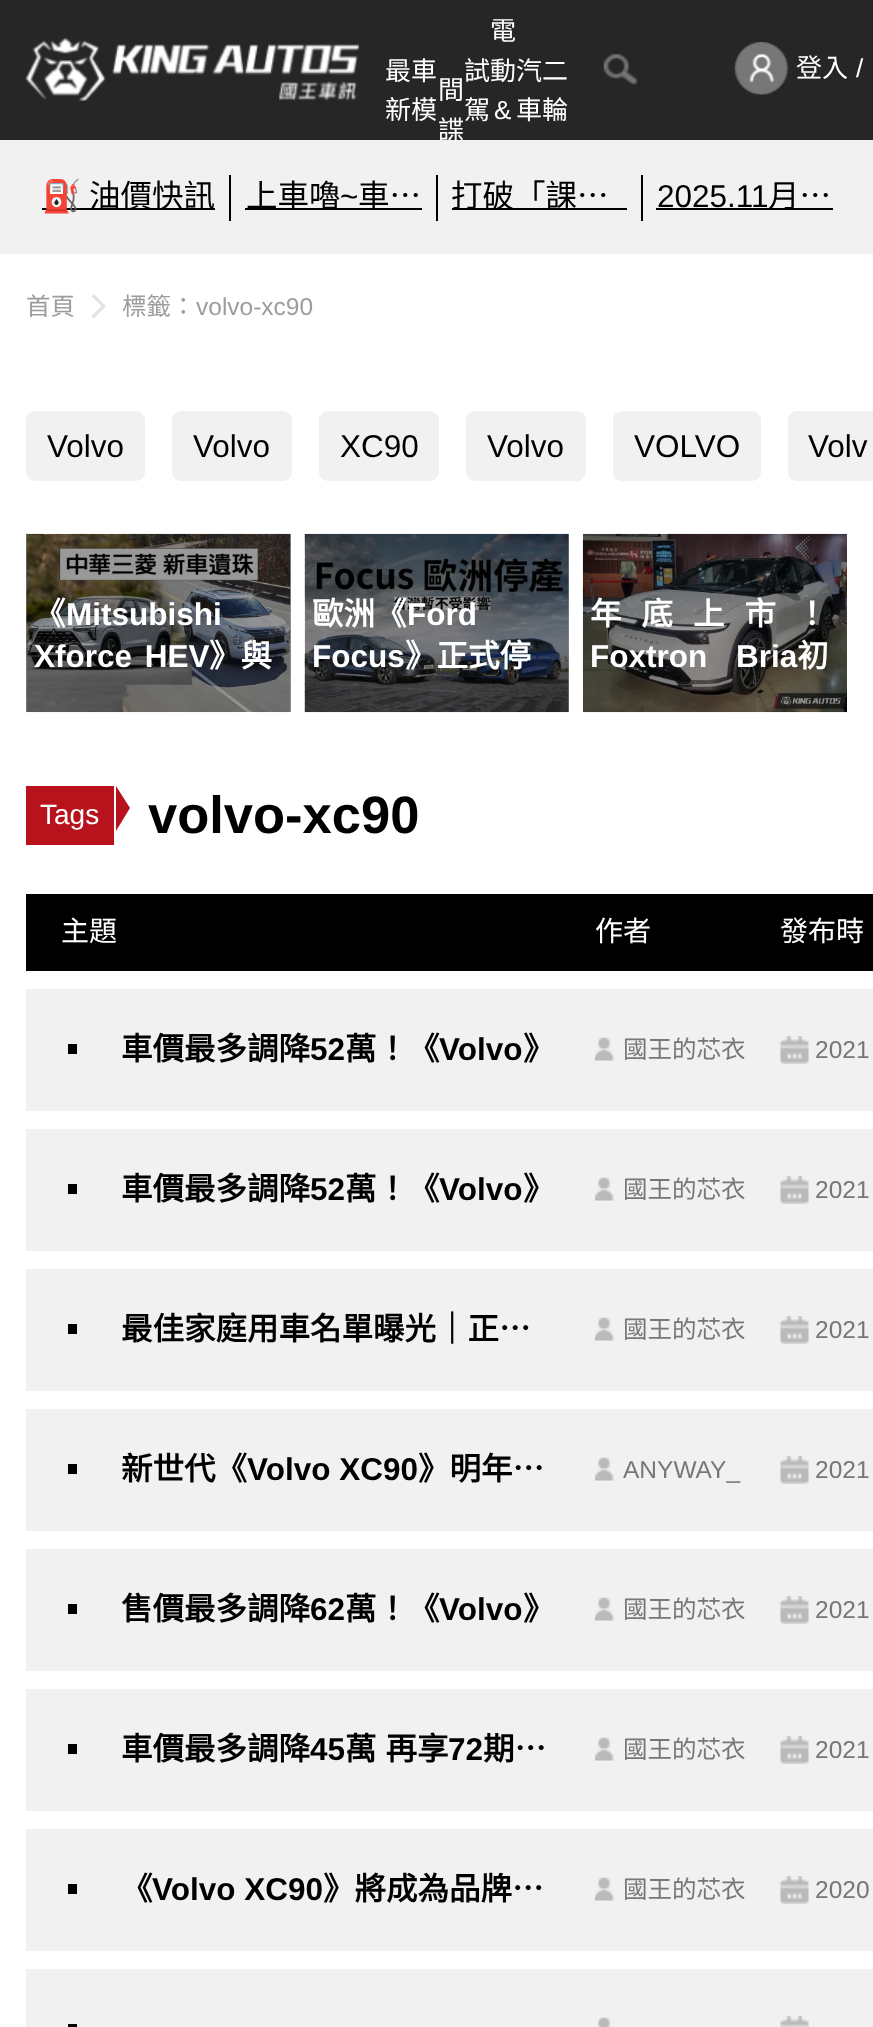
<svg xmlns="http://www.w3.org/2000/svg" width="873" height="2027">
	<rect width="100%" height="100%" fill="#FFFFFF" />
	<rect x="568" y="534" width="1" height="178" fill="#999999" />
	<rect x="26" y="534" width="265" height="178" fill="#999999" />
	<rect x="0" y="0" width="873" height="140" fill="#262626" />
	<image x="25" y="37" width="334" height="64" href="assets/img1.png" />
	<g font-family="Noto Sans CJK TC" font-size="26" fill="#FFFFFF">
		<text x="385" y="80">最車</text>
		<text x="385" y="119">新模</text>
		<text x="490" y="40">電</text>
	</g>
	<text x="494" y="119" font-family="Liberation Sans" font-size="26" fill="#FFFFFF">&amp;</text>
	<text x="438" y="99" font-family="Noto Sans CJK TC" font-size="26" fill="#FFFFFF">間</text>
	<rect x="0" y="140" width="873" height="114" fill="#F1F1F1" />
	<g font-family="Noto Sans CJK TC" font-size="26" fill="#FFFFFF">
		<text x="438" y="139">諜</text>
		<text x="464" y="80">試動汽二</text>
		<text x="464" y="119">駕</text>
		<text x="516" y="119">車輪</text>
	</g>
	<image x="603" y="54" width="35" height="31" href="assets/img2.png" />
	<image x="734" y="42" width="54" height="53" href="assets/img3.png" />
	<text x="796" y="77" font-family="Noto Sans CJK TC" font-size="26" fill="#FFFFFF">登入</text>
	<text x="856" y="77" font-family="Liberation Sans" font-size="26" fill="#FFFFFF">/</text>
	<rect x="229" y="175" width="2" height="46" fill="#000000" />
	<rect x="42" y="208" width="173" height="2" fill="#000000" />
	<text x="42" y="207" font-family="Noto Color Emoji" font-size="31.5" fill="#000000">⛽️</text>
	<text x="89" y="207" font-family="Noto Sans CJK TC" font-size="31.5" fill="#000000">油價快訊</text>
	<rect x="436" y="175" width="2" height="46" fill="#000000" />
	<rect x="245" y="208" width="177" height="2" fill="#000000" />
	<text x="246" y="207" font-family="Noto Sans CJK TC" font-size="31.5" fill="#000000">上車嚕</text>
	<text x="340" y="207" font-family="Liberation Sans" font-size="31.5" fill="#000000">~</text>
	<text x="358" y="207" font-family="Noto Sans CJK TC" font-size="31.5" fill="#000000">車…</text>
	<rect x="641" y="175" width="2" height="46" fill="#000000" />
	<rect x="452" y="208" width="175" height="2" fill="#000000" />
	<text x="451" y="207" font-family="Noto Sans CJK TC" font-size="31.5" fill="#000000">打破「課…</text>
	<text x="657" y="207" font-family="Liberation Sans" font-size="31.5" fill="#000000">2025.11</text>
	<rect x="656" y="208" width="177" height="2" fill="#000000" />
	<text x="768" y="207" font-family="Noto Sans CJK TC" font-size="31.5" fill="#000000">月…</text>
	<path d="M94 318.5L91.5 316L101.5 306L91.5 296.5L94 294L106 306Z" fill="#E3E3E3" />
	<g font-family="Noto Sans CJK TC" font-size="24.5" fill="#9D9D9D">
		<text x="26" y="315">首頁</text>
		<text x="122" y="315">標籤：</text>
	</g>
	<text x="196" y="315" font-family="Liberation Sans" font-size="24.5" fill="#9D9D9D">volvo-xc90</text>
	<rect x="26" y="411" width="119" height="70" rx="9" fill="#F1F1F1" />
	<text x="47" y="457" font-family="Liberation Sans" font-size="31.5" fill="#000000">Volvo</text>
	<rect x="172" y="411" width="120" height="70" rx="9" fill="#F1F1F1" />
	<text x="193" y="457" font-family="Liberation Sans" font-size="31.5" fill="#000000">Volvo</text>
	<rect x="319" y="411" width="120" height="70" rx="9" fill="#F1F1F1" />
	<text x="340" y="457" font-family="Liberation Sans" font-size="31.5" fill="#000000">XC90</text>
	<rect x="466" y="411" width="120" height="70" rx="9" fill="#F1F1F1" />
	<text x="487" y="457" font-family="Liberation Sans" font-size="31.5" fill="#000000">Volvo</text>
	<rect x="613" y="411" width="148" height="70" rx="9" fill="#F1F1F1" />
	<text x="634" y="457" font-family="Liberation Sans" font-size="31.5" fill="#000000">VOLVO</text>
	<path d="M797 411H873V481H797C792 481 788 477 788 472V420C788 415 792 411 797 411Z" fill="#F1F1F1" />
	<text x="808" y="457" font-family="Liberation Sans" font-size="31.5" fill="#000000">Volv</text>
	<image x="26" y="533" width="265" height="180" href="assets/img4.png" />
	<text x="34" y="625" font-family="Noto Sans CJK TC" font-size="31.5" font-weight="700" fill="#FFFFFF">《</text>
	<g font-family="Liberation Sans" font-size="31.5" font-weight="700" fill="#FFFFFF">
		<text x="66" y="625">Mitsubishi</text>
		<text x="34" y="667" word-spacing="4">Xforce HEV</text>
	</g>
	<text x="209" y="667" font-family="Noto Sans CJK TC" font-size="31.5" font-weight="700" fill="#FFFFFF">》與</text>
	<image x="304" y="533" width="265" height="180" href="assets/img5.png" />
	<text x="312" y="625" font-family="Noto Sans CJK TC" font-size="31.5" font-weight="700" fill="#FFFFFF">歐洲《</text>
	<g font-family="Liberation Sans" font-size="31.5" font-weight="700" fill="#FFFFFF">
		<text x="407" y="625">Ford</text>
		<text x="312" y="667">Focus</text>
	</g>
	<text x="405" y="667" font-family="Noto Sans CJK TC" font-size="31.5" font-weight="700" fill="#FFFFFF">》正式停</text>
	<image x="582" y="533" width="265" height="180" href="assets/img6.png" />
	<text x="590" y="625" font-family="Noto Sans CJK TC" font-size="31.5" font-weight="700" letter-spacing="20" fill="#FFFFFF">年底上市！</text>
	<text x="590" y="667" word-spacing="20" font-family="Liberation Sans" font-size="31.5" font-weight="700" fill="#FFFFFF">Foxtron Bria</text>
	<text x="797" y="667" font-family="Noto Sans CJK TC" font-size="31.5" font-weight="700" fill="#FFFFFF">初</text>
	<rect x="26" y="786" width="88" height="59" fill="#B8121C" />
	<text x="40" y="824" font-family="Liberation Sans" font-size="28" fill="#FFFFFF">Tags</text>
	<path d="M116 831V786L130 808Z" fill="#B8121C" />
	<text x="148" y="833" font-family="Liberation Sans" font-size="52.5" font-weight="700" fill="#000000">volvo-xc90</text>
	<rect x="26" y="894" width="847" height="77" fill="#000000" />
	<g font-family="Noto Sans CJK TC" font-size="28" fill="#FFFFFF">
		<text x="61" y="941">主題</text>
		<text x="595" y="941">作者</text>
		<text x="780" y="941">發布時</text>
	</g>
	<rect x="26" y="989" width="847" height="122" fill="#F1F1F1" />
	<rect x="68" y="1044" width="9" height="10" fill="#000000" />
	<text x="121" y="1060" font-family="Noto Sans CJK TC" font-size="31.5" font-weight="700" fill="#000000">車價最多調降</text>
	<text x="310" y="1060" font-family="Liberation Sans" font-size="31.5" font-weight="700" fill="#000000">52</text>
	<text x="345" y="1060" font-family="Noto Sans CJK TC" font-size="31.5" font-weight="700" fill="#000000">萬！《</text>
	<text x="439" y="1060" font-family="Liberation Sans" font-size="31.5" font-weight="700" fill="#000000">Volvo</text>
	<text x="523" y="1060" font-family="Noto Sans CJK TC" font-size="31.5" font-weight="700" fill="#000000">》</text>
	<image x="595" y="1037" width="20" height="24" href="assets/img7.png" />
	<text x="623" y="1058" font-family="Noto Sans CJK TC" font-size="24.5" fill="#777777">國王的芯衣</text>
	<image x="780" y="1036" width="29" height="28" href="assets/img8.png" />
	<text x="815" y="1058" font-family="Liberation Sans" font-size="24.5" fill="#777777">2021</text>
	<rect x="26" y="1129" width="847" height="122" fill="#F1F1F1" />
	<rect x="68" y="1184" width="9" height="10" fill="#000000" />
	<text x="121" y="1200" font-family="Noto Sans CJK TC" font-size="31.5" font-weight="700" fill="#000000">車價最多調降</text>
	<text x="310" y="1200" font-family="Liberation Sans" font-size="31.5" font-weight="700" fill="#000000">52</text>
	<text x="345" y="1200" font-family="Noto Sans CJK TC" font-size="31.5" font-weight="700" fill="#000000">萬！《</text>
	<text x="439" y="1200" font-family="Liberation Sans" font-size="31.5" font-weight="700" fill="#000000">Volvo</text>
	<text x="523" y="1200" font-family="Noto Sans CJK TC" font-size="31.5" font-weight="700" fill="#000000">》</text>
	<image x="595" y="1177" width="20" height="24" href="assets/img7.png" />
	<text x="623" y="1198" font-family="Noto Sans CJK TC" font-size="24.5" fill="#777777">國王的芯衣</text>
	<image x="780" y="1176" width="29" height="28" href="assets/img8.png" />
	<text x="815" y="1198" font-family="Liberation Sans" font-size="24.5" fill="#777777">2021</text>
	<rect x="26" y="1269" width="847" height="122" fill="#F1F1F1" />
	<rect x="68" y="1324" width="9" height="10" fill="#000000" />
	<text x="121" y="1340" font-family="Noto Sans CJK TC" font-size="31.5" font-weight="700" fill="#000000">最佳家庭用車名單曝光｜正…</text>
	<image x="595" y="1317" width="20" height="24" href="assets/img7.png" />
	<text x="623" y="1338" font-family="Noto Sans CJK TC" font-size="24.5" fill="#777777">國王的芯衣</text>
	<image x="780" y="1316" width="29" height="28" href="assets/img8.png" />
	<text x="815" y="1338" font-family="Liberation Sans" font-size="24.5" fill="#777777">2021</text>
	<rect x="26" y="1409" width="847" height="122" fill="#F1F1F1" />
	<rect x="68" y="1464" width="9" height="10" fill="#000000" />
	<text x="121" y="1480" font-family="Noto Sans CJK TC" font-size="31.5" font-weight="700" fill="#000000">新世代《</text>
	<text x="247" y="1480" font-family="Liberation Sans" font-size="31.5" font-weight="700" fill="#000000">Volvo XC90</text>
	<text x="418" y="1480" font-family="Noto Sans CJK TC" font-size="31.5" font-weight="700" fill="#000000">》明年…</text>
	<image x="595" y="1457" width="20" height="24" href="assets/img7.png" />
	<text x="623" y="1478" font-family="Liberation Sans" font-size="24.5" fill="#777777">ANYWAY_</text>
	<image x="780" y="1456" width="29" height="28" href="assets/img8.png" />
	<text x="815" y="1478" font-family="Liberation Sans" font-size="24.5" fill="#777777">2021</text>
	<rect x="26" y="1549" width="847" height="122" fill="#F1F1F1" />
	<rect x="68" y="1604" width="9" height="10" fill="#000000" />
	<text x="121" y="1620" font-family="Noto Sans CJK TC" font-size="31.5" font-weight="700" fill="#000000">售價最多調降</text>
	<text x="310" y="1620" font-family="Liberation Sans" font-size="31.5" font-weight="700" fill="#000000">62</text>
	<text x="345" y="1620" font-family="Noto Sans CJK TC" font-size="31.5" font-weight="700" fill="#000000">萬！《</text>
	<text x="439" y="1620" font-family="Liberation Sans" font-size="31.5" font-weight="700" fill="#000000">Volvo</text>
	<text x="523" y="1620" font-family="Noto Sans CJK TC" font-size="31.5" font-weight="700" fill="#000000">》</text>
	<image x="595" y="1597" width="20" height="24" href="assets/img7.png" />
	<text x="623" y="1618" font-family="Noto Sans CJK TC" font-size="24.5" fill="#777777">國王的芯衣</text>
	<image x="780" y="1596" width="29" height="28" href="assets/img8.png" />
	<text x="815" y="1618" font-family="Liberation Sans" font-size="24.5" fill="#777777">2021</text>
	<rect x="26" y="1689" width="847" height="122" fill="#F1F1F1" />
	<rect x="68" y="1744" width="9" height="10" fill="#000000" />
	<text x="121" y="1760" font-family="Noto Sans CJK TC" font-size="31.5" font-weight="700" fill="#000000">車價最多調降</text>
	<text x="310" y="1760" font-family="Liberation Sans" font-size="31.5" font-weight="700" fill="#000000">45</text>
	<text x="345" y="1760" word-spacing="2" font-family="Noto Sans CJK TC" font-size="31.5" font-weight="700" fill="#000000">萬 再享</text>
	<text x="448" y="1760" font-family="Liberation Sans" font-size="31.5" font-weight="700" fill="#000000">72</text>
	<text x="483" y="1760" font-family="Noto Sans CJK TC" font-size="31.5" font-weight="700" fill="#000000">期…</text>
	<image x="595" y="1737" width="20" height="24" href="assets/img7.png" />
	<text x="623" y="1758" font-family="Noto Sans CJK TC" font-size="24.5" fill="#777777">國王的芯衣</text>
	<image x="780" y="1736" width="29" height="28" href="assets/img8.png" />
	<text x="815" y="1758" font-family="Liberation Sans" font-size="24.5" fill="#777777">2021</text>
	<rect x="26" y="1829" width="847" height="122" fill="#F1F1F1" />
	<rect x="68" y="1884" width="9" height="10" fill="#000000" />
	<text x="121" y="1900" font-family="Noto Sans CJK TC" font-size="31.5" font-weight="700" fill="#000000">《</text>
	<text x="152" y="1900" font-family="Liberation Sans" font-size="31.5" font-weight="700" fill="#000000">Volvo XC90</text>
	<text x="323" y="1900" font-family="Noto Sans CJK TC" font-size="31.5" font-weight="700" fill="#000000">》將成為品牌…</text>
	<image x="595" y="1877" width="20" height="24" href="assets/img9.png" />
	<text x="623" y="1898" font-family="Noto Sans CJK TC" font-size="24.5" fill="#777777">國王的芯衣</text>
	<image x="780" y="1876" width="29" height="28" href="assets/img10.png" />
	<text x="815" y="1898" font-family="Liberation Sans" font-size="24.5" fill="#777777">2020</text>
	<rect x="26" y="1969" width="847" height="58" fill="#F1F1F1" />
	<rect x="68" y="2024" width="9" height="3" fill="#000000" />
	<image x="598" y="2017" width="13" height="10" href="assets/img11.png" />
	<image x="780" y="2016" width="29" height="11" href="assets/img12.png" />
</svg>
